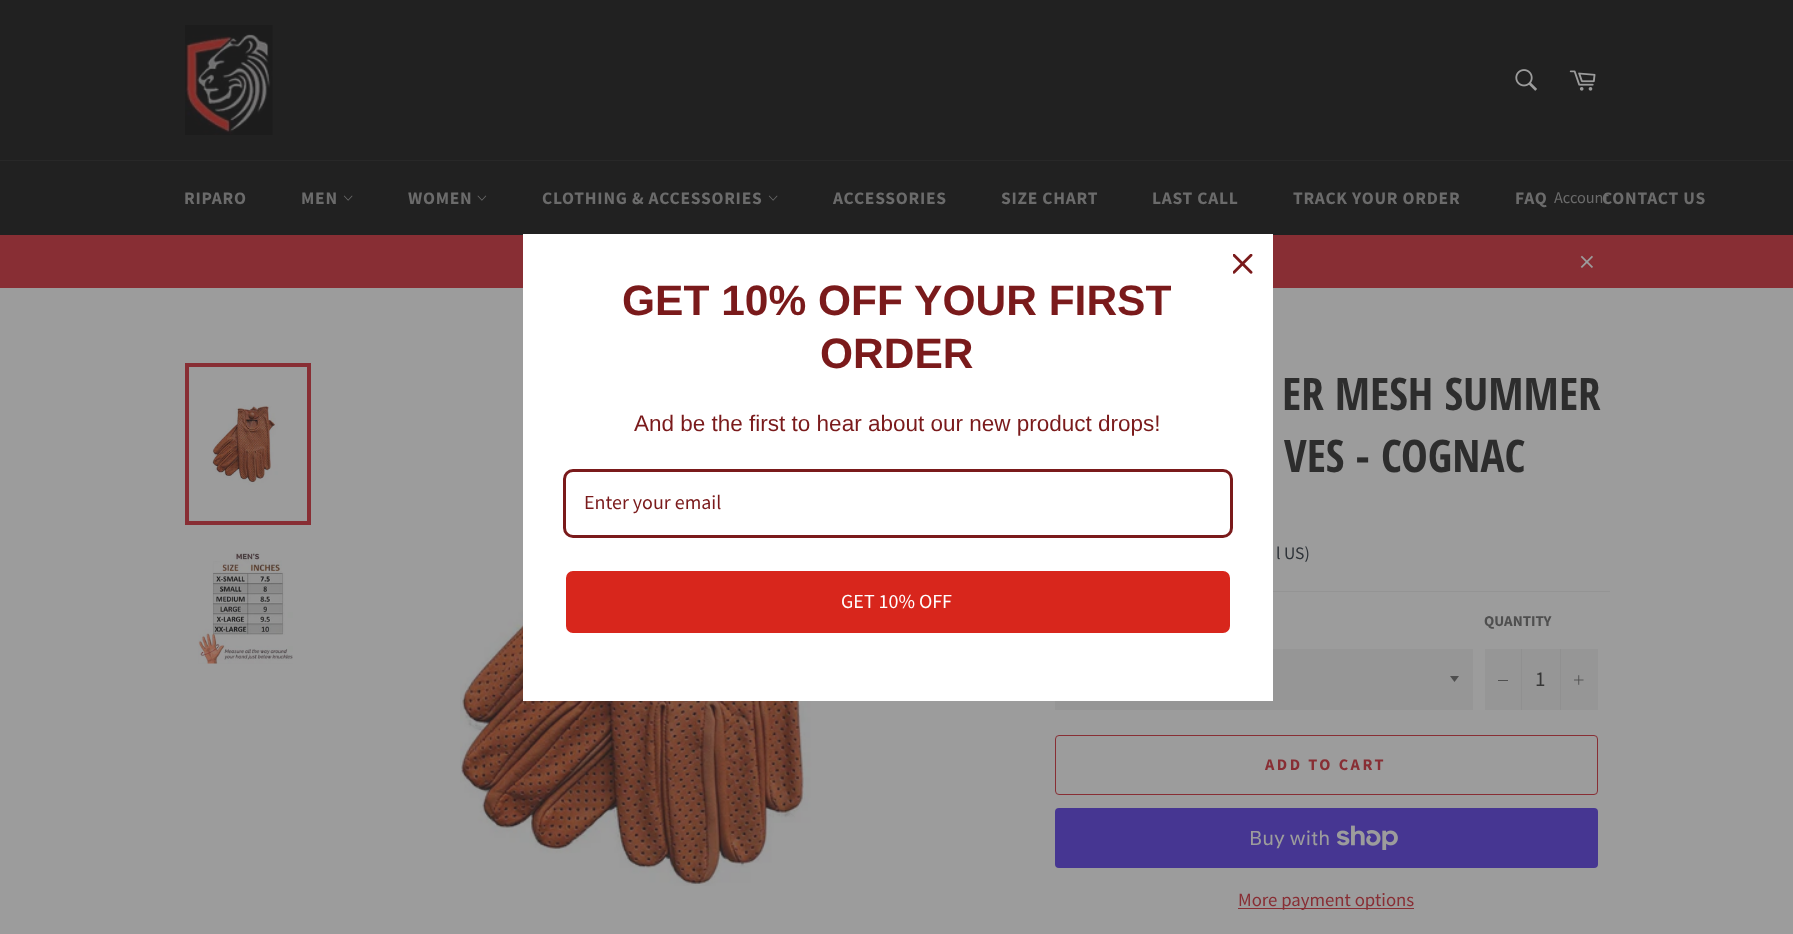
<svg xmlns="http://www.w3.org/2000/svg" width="1793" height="934">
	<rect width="100%" height="100%" fill="#212121" />
	<image x="185" y="25" width="88" height="110" href="assets/img1.png" />
	<image x="1515" y="69" width="22" height="22" href="assets/img2.png" />
	<image x="1569" y="70" width="27" height="21" href="assets/img3.png" />
	<rect x="0" y="160" width="1793" height="1" fill="#282828" />
	<g font-family="Source Sans Pro" font-size="17.5" font-weight="700" letter-spacing="0.75" fill="#6B6B6B">
		<text x="184" y="204">RIPARO</text>
		<text x="301" y="204">MEN</text>
	</g>
	<image x="343" y="195" width="10" height="6" href="assets/img4.png" />
	<text x="408" y="204" font-family="Source Sans Pro" font-size="17.5" font-weight="700" letter-spacing="0.75" fill="#6B6B6B">WOMEN</text>
	<image x="477" y="195" width="10" height="6" href="assets/img5.png" />
	<text x="542" y="204" font-family="Source Sans Pro" font-size="17.5" font-weight="700" letter-spacing="0.75" fill="#6B6B6B">CLOTHING &amp; ACCESSORIES</text>
	<image x="768" y="195" width="10" height="6" href="assets/img4.png" />
	<g font-family="Source Sans Pro" font-size="17.5" font-weight="700" letter-spacing="0.75" fill="#6B6B6B">
		<text x="833" y="204">ACCESSORIES</text>
		<text x="1001" y="204">SIZE CHART</text>
		<text x="1152" y="204">LAST CALL</text>
		<text x="1293" y="204">TRACK YOUR ORDER</text>
		<text x="1515" y="204">FAQ</text>
		<text x="1602" y="204">CONTACT US</text>
	</g>
	<text x="1554" y="203" font-family="Source Sans Pro" font-size="16.25" fill="#6B6B6B">Account</text>
	<rect x="0" y="235" width="1793" height="53" fill="#882E34" />
	<image x="1580" y="255" width="13" height="13" href="assets/img6.png" />
	<rect x="0" y="288" width="1793" height="646" fill="#9C9C9C" />
	<image x="460" y="439" width="370" height="447" href="assets/img10.png" />
	<rect x="1055" y="649" width="418" height="61" fill="#969696" />
	<rect x="523" y="234" width="750" height="467" fill="#FFFFFF" />
	<image x="1233" y="254" width="20" height="20" href="assets/img7.png" />
	<g font-family="Liberation Sans" font-size="42.5" font-weight="700" fill="#7A1A1B">
		<text x="622" y="315">GET 10% OFF YOUR FIRST</text>
		<text x="820" y="368">ORDER</text>
	</g>
	<text x="634" y="431" font-family="Liberation Sans" font-size="22.5" fill="#7A1A1B">And be the first to hear about our new product drops!</text>
	<rect x="564.5" y="470.5" width="667" height="66" rx="8.5" fill="none" stroke="#7A1A1B" stroke-width="3" />
	<text x="584" y="509" font-family="'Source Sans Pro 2'" font-size="20" fill="#7A1A1B">Enter your email</text>
	<rect x="564.5" y="569.5" width="667" height="65" rx="8.5" fill="#D8261C" stroke="#FFFFFF" stroke-width="3" />
	<text x="841" y="608" font-family="'Source Sans Pro 2'" font-size="20" fill="#FFFFFF">GET 10% OFF</text>
	<image x="212" y="405" width="66" height="80" href="assets/img8.png" />
	<rect x="187" y="365" width="122" height="158" fill="none" stroke="#882E34" stroke-width="4" />
	<image x="198" y="553" width="95" height="111" href="assets/img9.png" />
	<g font-family="Open Sans Condensed" font-size="45" font-weight="700" fill="#2D2D2D">
		<text x="1282" y="410">ER MESH SUMMER</text>
		<text x="1284" y="472">VES - COGNAC</text>
	</g>
	<text x="1276" y="559" font-family="Source Sans Pro" font-size="17.5" fill="#2D3237">l US)</text>
	<rect x="1273" y="591" width="337" height="1" fill="#949494" />
	<path d="M1450 676L1454.5 682L1459 676Z" fill="#4F4F4F" />
	<text x="1484" y="626" font-family="Source Sans Pro" font-size="15" font-weight="700" fill="#4F4F4F">QUANTITY</text>
	<rect x="1485" y="649" width="113" height="61" fill="#969696" />
	<rect x="1521" y="649" width="1" height="61" fill="#909090" />
	<rect x="1498" y="680" width="10" height="1" fill="#4F4F4F" />
	<text x="1535" y="686" font-family="Source Sans Pro" font-size="21" fill="#363636">1</text>
	<rect x="1560" y="649" width="1" height="61" fill="#909090" />
	<image x="1574" y="675" width="10" height="10" href="assets/img11.png" />
	<rect x="1055.5" y="735.5" width="542" height="59" rx="3.5" fill="none" stroke="#882E34" />
	<text x="1265" y="770" font-family="Source Sans Pro" font-size="16.25" font-weight="700" letter-spacing="2.5" fill="#882E34">ADD TO CART</text>
	<rect x="1055" y="808" width="543" height="60" rx="4" fill="#463692" />
	<text x="1249" y="845" font-family="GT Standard" font-size="20" fill="#9C9C9C">Buy with</text>
	<image x="1336" y="825" width="62" height="25" href="assets/img12.png" />
	<rect x="1238" y="908" width="176" height="1" fill="#882E34" />
	<text x="1238" y="906" font-family="Source Sans Pro" font-size="18.75" fill="#882E34">More payment options</text>
</svg>
